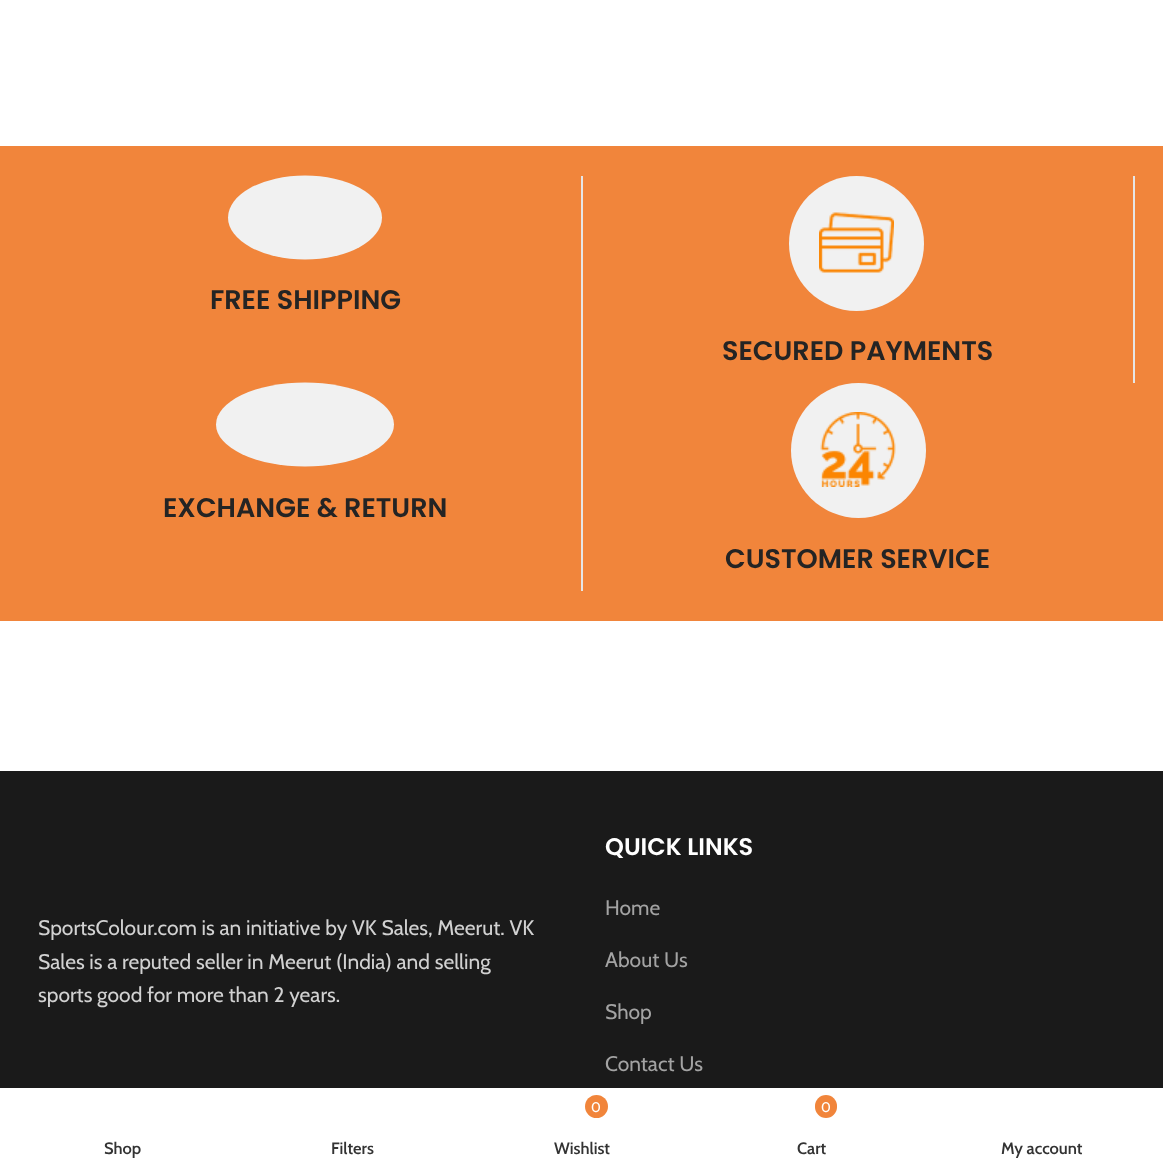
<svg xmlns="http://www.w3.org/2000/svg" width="1163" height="1169">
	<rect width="100%" height="100%" fill="#FFFFFF" />
	<rect x="0" y="146" width="1163" height="475" fill="#F1853B" />
	<rect x="581" y="176" width="2" height="415" fill="#E6E6E6" />
	<ellipse cx="305" cy="217.5" rx="77" ry="42" fill="#F1F1F1" />
	<text x="210" y="309" font-family="Poppins" font-size="27" font-weight="600" fill="#242424">FREE SHIPPING</text>
	<rect x="1133" y="176" width="2" height="207" fill="#E6E6E6" />
	<circle cx="856.5" cy="243.5" r="67.5" fill="#F1F1F1" />
	<image x="819" y="212" width="75" height="61" href="assets/img1.png" />
	<text x="722" y="360" font-family="Poppins" font-size="27" font-weight="600" fill="#242424">SECURED PAYMENTS</text>
	<ellipse cx="305" cy="424.5" rx="89" ry="42" fill="#F1F1F1" />
	<text x="163" y="517" font-family="Poppins" font-size="27" font-weight="600" fill="#242424">EXCHANGE &amp; RETURN</text>
	<circle cx="858.5" cy="450.5" r="67.5" fill="#F1F1F1" />
	<image x="820" y="412" width="76" height="75" href="assets/img2.png" />
	<text x="725" y="568" font-family="Poppins" font-size="27" font-weight="600" fill="#242424">CUSTOMER SERVICE</text>
	<rect x="0" y="771" width="1163" height="317" fill="#1A1A1A" />
	<g font-family="Cabin" font-size="21" fill="#D1D1D1">
		<text x="38" y="935">SportsColour.com is an initiative by VK Sales, Meerut. VK</text>
		<text x="38" y="969">Sales is a reputed seller in Meerut (India) and selling</text>
		<text x="38" y="1002">sports good for more than 2 years.</text>
	</g>
	<text x="605" y="855" font-family="Poppins" font-size="24" font-weight="600" fill="#FFFFFF">QUICK LINKS</text>
	<g font-family="Cabin" font-size="21" fill="#A3A3A3">
		<text x="605" y="915">Home</text>
		<text x="605" y="967">About Us</text>
		<text x="605" y="1019">Shop</text>
		<text x="605" y="1071">Contact Us</text>
	</g>
	<g font-family="Cabin" font-size="16.5" font-weight="600" fill="#333333">
		<text x="104" y="1154">Shop</text>
		<text x="331" y="1154">Filters</text>
	</g>
	<circle cx="596.5" cy="1106.5" r="11.5" fill="#F1853B" />
	<text x="591" y="1112" font-family="Cabin" font-size="14" fill="#FFFFFF">0</text>
	<text x="554" y="1154" font-family="Cabin" font-size="16.5" font-weight="600" fill="#333333">Wishlist</text>
	<rect x="815" y="1095" width="22" height="23" rx="11" fill="#F1853B" />
	<text x="821" y="1112" font-family="Cabin" font-size="14" fill="#FFFFFF">0</text>
	<g font-family="Cabin" font-size="16.5" font-weight="600" fill="#333333">
		<text x="797" y="1154">Cart</text>
		<text x="1001" y="1154">My account</text>
	</g>
</svg>
